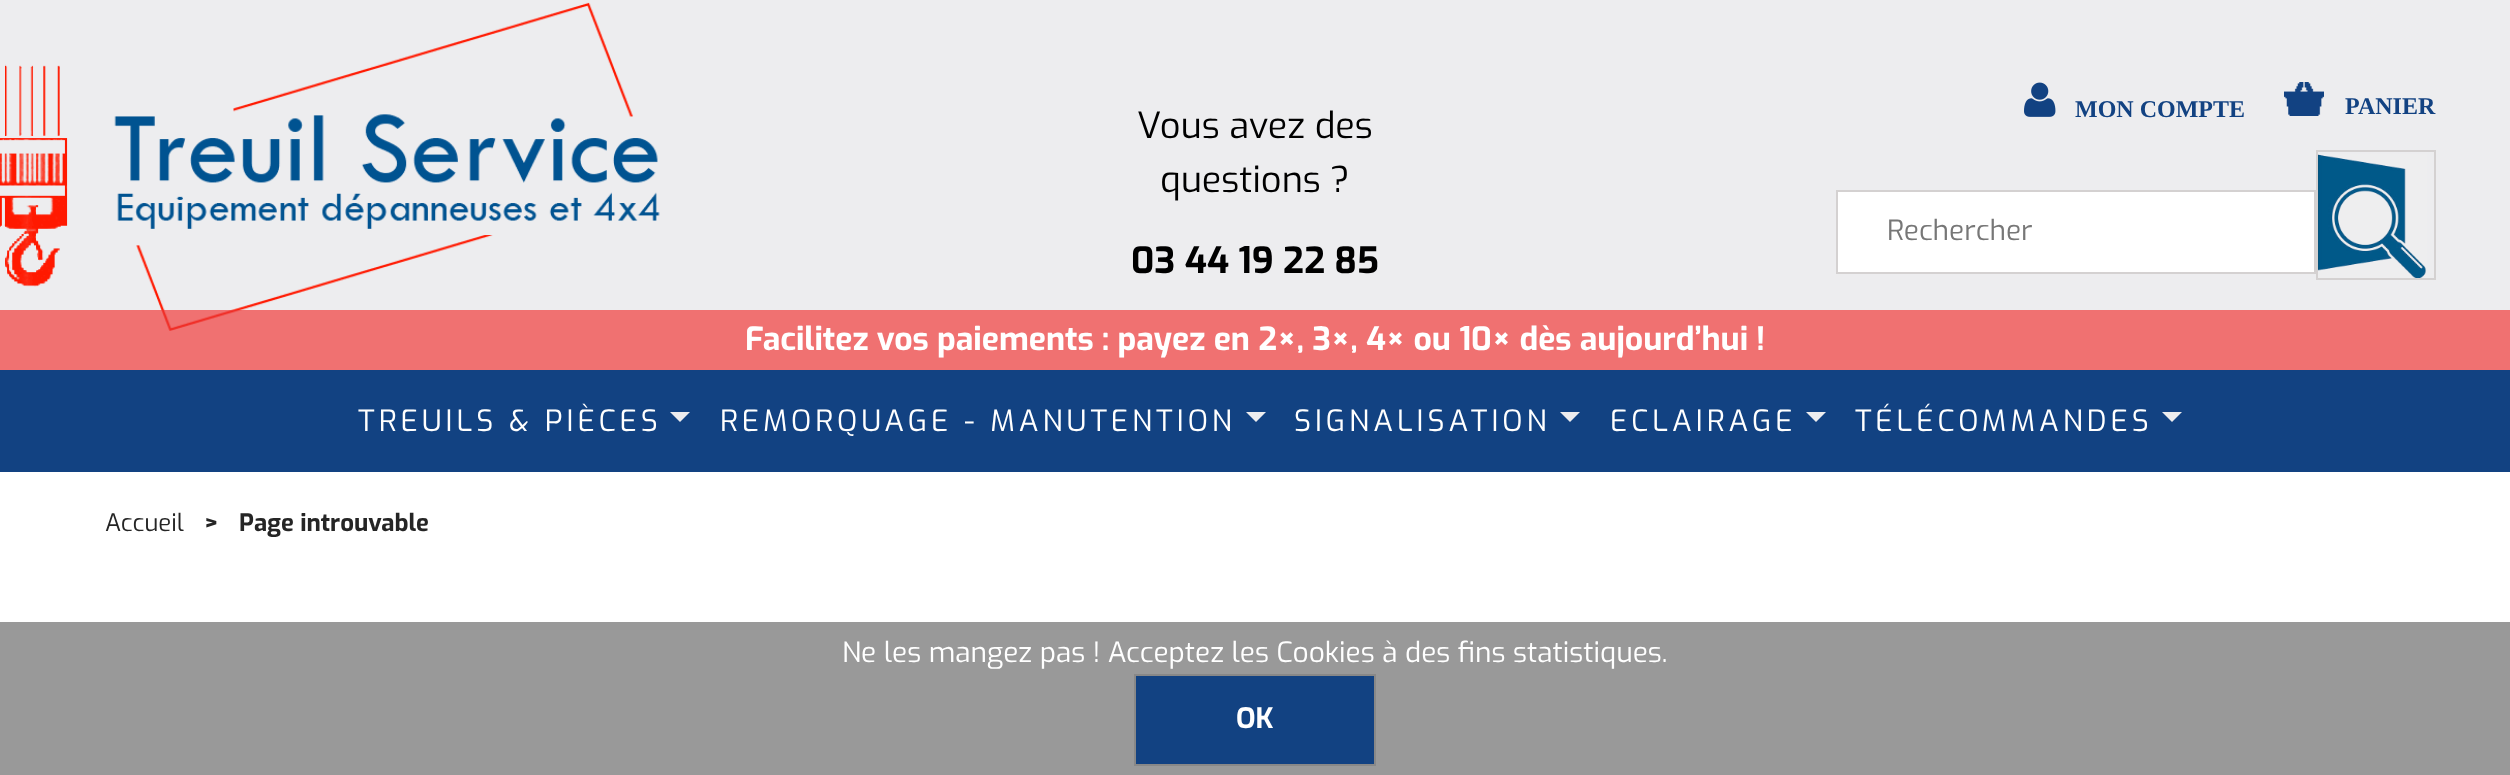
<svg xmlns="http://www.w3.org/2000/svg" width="2510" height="775">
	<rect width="100%" height="100%" fill="#FFFFFF" />
	<rect x="0" y="622" width="2510" height="153" fill="#999999" />
	<rect x="0" y="0" width="2510" height="310" fill="#EDEDEF" />
	<image x="0" y="2" width="660" height="329" href="assets/img1.png" />
	<image x="2024" y="82" width="32" height="35" href="assets/img2.png" />
	<text x="2075" y="117" font-family="Liberation Serif" font-size="24" font-weight="700" fill="#124282">MON COMPTE</text>
	<image x="2284" y="82" width="40" height="34" href="assets/img3.png" />
	<text x="2345" y="114" font-family="Liberation Serif" font-size="24" font-weight="700" fill="#124282">PANIER</text>
	<rect x="1837" y="191" width="478" height="82" fill="#FFFFFF" stroke="#D4D1D1" stroke-width="2" />
	<text x="1887" y="240" font-family="Exo" font-size="28" fill="#777777">Rechercher</text>
	<image x="2318" y="154" width="109" height="124" href="assets/img4.png" />
	<rect x="2317" y="151" width="118" height="128" fill="none" stroke="#D4D1D1" stroke-width="2" />
	<rect x="0" y="310" width="2510" height="60" fill="#E93434" fill-opacity="0.7" />
	<text x="745" y="350" font-family="Exo" font-size="32" font-weight="700" fill="#FFFFFF">Facilitez vos paiements : payez en 2×, 3×, 4× ou 10× dès aujourd’hui !</text>
	<rect x="0" y="370" width="2510" height="102" fill="#124282" />
	<text x="358" y="431" font-family="Exo" font-size="29.4" letter-spacing="4" fill="#FFFFFF">TREUILS &amp; PIÈCES</text>
	<path d="M670 412H690L680 422Z" fill="#EDEDEF" />
	<text x="720" y="431" font-family="Exo" font-size="29.4" letter-spacing="4" fill="#FFFFFF">REMORQUAGE - MANUTENTION</text>
	<path d="M1246 412H1266L1256 422Z" fill="#EDEDEF" />
	<text x="1294" y="431" font-family="Exo" font-size="29.4" letter-spacing="4" fill="#FFFFFF">SIGNALISATION</text>
	<path d="M1560 412H1580L1570 422Z" fill="#EDEDEF" />
	<text x="1610" y="431" font-family="Exo" font-size="29.4" letter-spacing="4" fill="#FFFFFF">ECLAIRAGE</text>
	<path d="M1806 412H1826L1816 422Z" fill="#EDEDEF" />
	<text x="1855" y="431" font-family="Exo" font-size="29.4" letter-spacing="4" fill="#FFFFFF">TÉLÉCOMMANDES</text>
	<path d="M2162 412H2182L2172 422Z" fill="#EDEDEF" />
	<text x="105" y="531" font-family="Exo" font-size="24" fill="#252525">Accueil</text>
	<g font-family="Exo" font-size="24" font-weight="700" fill="#252525">
		<text x="204" y="531">&gt;</text>
		<text x="239" y="531">Page introuvable</text>
	</g>
	<g font-family="Exo" font-size="36" fill="#000000">
		<text x="1137" y="138">Vous avez des</text>
		<text x="1160" y="192">questions ?</text>
	</g>
	<text x="1131" y="273" font-family="Exo" font-size="36" font-weight="700" fill="#000000">03 44 19 22 85</text>
	<text x="842" y="662" font-family="Exo" font-size="28" fill="#FFFFFF">Ne les mangez pas ! Acceptez les Cookies à des fins statistiques.</text>
	<rect x="1135" y="675" width="240" height="90" fill="#124282" stroke="#888888" stroke-width="2" />
	<text x="1236" y="728" font-family="Exo" font-size="28" font-weight="700" fill="#FFFFFF">OK</text>
</svg>
